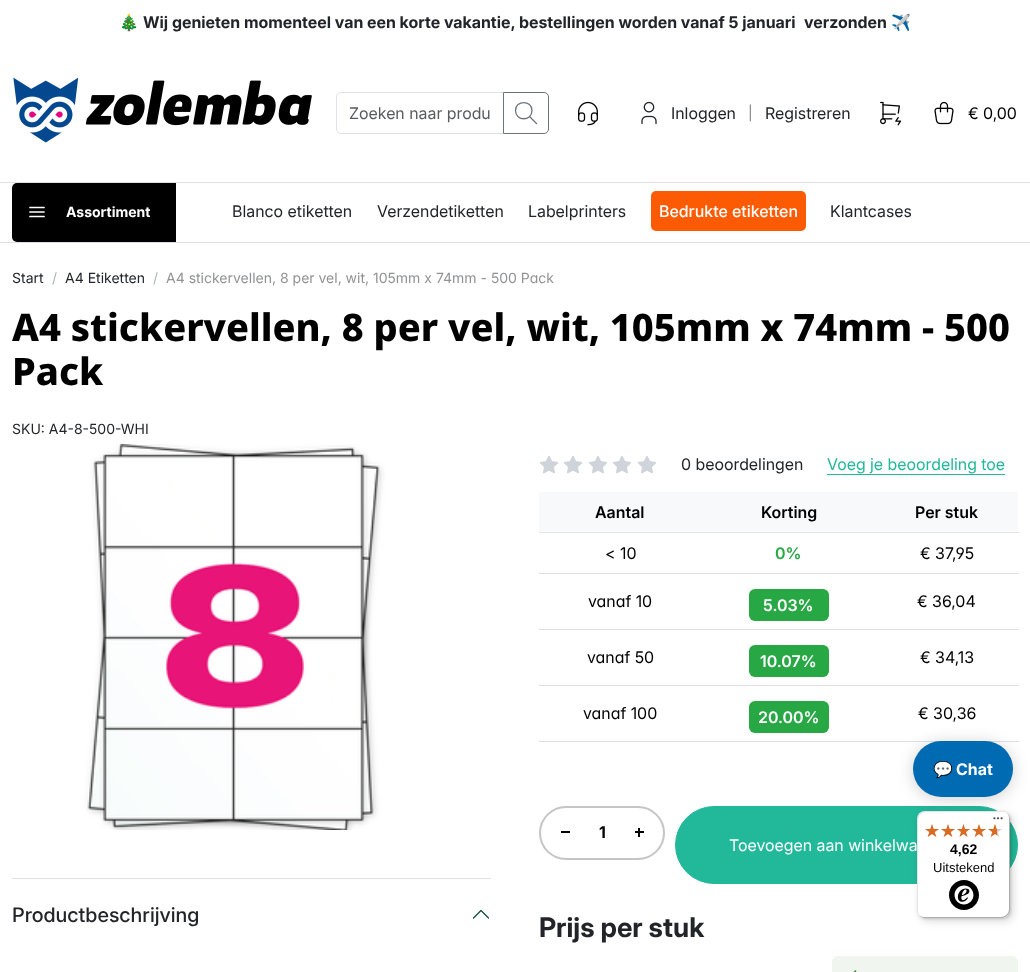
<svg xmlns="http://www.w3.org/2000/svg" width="1030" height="972">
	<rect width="100%" height="100%" fill="#FFFFFF" />
	<text x="119" y="28" font-family="Noto Color Emoji" font-size="16" font-weight="700" fill="#212529">🎄</text>
	<text x="143" y="28" font-family="Inter" font-size="16" font-weight="700" fill="#212529">Wij genieten momenteel van een korte vakantie, bestellingen worden vanaf 5 januari</text>
	<text x="804" y="28" font-family="Inter" font-size="16" font-weight="700" fill="#212529">verzonden</text>
	<text x="891" y="28" font-family="Noto Color Emoji" font-size="16" font-weight="700" fill="#212529">✈️</text>
	<rect x="0" y="182" width="1030" height="1" fill="#DEE2E6" />
	<image x="13" y="77" width="299" height="66" href="assets/img1.png" />
	<path d="M341 92.5H503.5V133.5H341C338.5 133.5 336.5 131.5 336.5 129V97C336.5 94.5 338.5 92.5 341 92.5Z" fill="none" stroke="#DEE2E6" />
	<text x="349" y="119" font-family="Inter" font-size="16" fill="#595C5F">Zoeken naar produ</text>
	<path d="M503.5 92.5H544C546.5 92.5 548.5 94.5 548.5 97V129C548.5 131.5 546.5 133.5 544 133.5H503.5Z" fill="none" stroke="#6C757D" />
	<path d="M515.5 110.5C515.5 121.5 532 121.5 532 110.5C532 100 515.5 100 515.5 110.5M536.5 123.5L529.5 116.5" fill="none" stroke="#6C757D" stroke-width="1.3" stroke-linecap="round" stroke-linejoin="round" />
	<image x="578" y="101" width="20" height="25" href="assets/img2.png" />
	<image x="641" y="101" width="16" height="24" href="assets/img3.png" />
	<text x="671" y="119" font-family="Inter" font-size="16" fill="#212529">Inloggen</text>
	<text x="748" y="118" font-family="'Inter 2'" font-size="14" fill="#808080">|</text>
	<text x="765" y="119" font-family="Inter" font-size="16" fill="#212529">Registreren</text>
	<image x="880" y="101" width="22" height="25" href="assets/img4.png" />
	<image x="934" y="101" width="20" height="24" href="assets/img5.png" />
	<text x="968" y="119" font-family="Inter" font-size="16" fill="#000000">€ 0,00</text>
	<rect x="0" y="242" width="1030" height="1" fill="#DEE2E6" />
	<path d="M37 183H176V242H37C23 242 12 231 12 217V208C12 194 23 183 37 183Z" fill="#000000" />
	<rect x="12" y="183" width="164" height="59" rx="5" fill="#000000" />
	<path d="M30 207.5H44M30 212H44M30 216.5H44" fill="none" stroke="#FFFFFF" stroke-width="1.7" stroke-linecap="round" stroke-linejoin="round" />
	<text x="66" y="217" font-family="'Inter 2'" font-size="14" font-weight="700" fill="#FFFFFF">Assortiment</text>
	<g font-family="Inter" font-size="16" fill="#212529">
		<text x="232" y="217">Blanco etiketten</text>
		<text x="377" y="217">Verzendetiketten</text>
		<text x="528" y="217">Labelprinters</text>
	</g>
	<rect x="651" y="191" width="155" height="40" rx="5" fill="#FD5B03" />
	<text x="659" y="217" font-family="Inter" font-size="16" font-weight="500" fill="#FFFFFF">Bedrukte etiketten</text>
	<text x="830" y="217" font-family="Inter" font-size="16" fill="#212529">Klantcases</text>
	<text x="12" y="283" font-family="'Inter 2'" font-size="14" fill="#212529">Start</text>
	<text x="52" y="283" font-family="'Inter 2'" font-size="14" fill="#ADB5BD">/</text>
	<text x="65" y="283" font-family="'Inter 2'" font-size="14" fill="#212529">A4 Etiketten</text>
	<text x="153" y="283" font-family="'Inter 2'" font-size="14" fill="#ADB5BD">/</text>
	<text x="166" y="283" font-family="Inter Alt" font-size="14" fill="#909294">A4 stickervellen, 8 per vel, wit, 105mm x 74mm - 500 Pack</text>
	<g font-family="Noto Sans" font-size="38" font-weight="800" fill="#000000">
		<text x="12" y="341">A4 stickervellen, 8 per vel, wit, 105mm x 74mm - 500</text>
		<text x="12" y="385">Pack</text>
	</g>
	<text x="12" y="434" font-family="'Inter 2'" font-size="14" fill="#212529">SKU: A4-8-500-WHI</text>
	<rect x="12" y="444" width="443" height="386" rx="8" fill="#F8F9FA" />
	<image x="12" y="444" width="443" height="386" href="assets/img6.png" />
	<rect x="12" y="878" width="479" height="1" fill="#DEE2E6" />
	<text x="12" y="922" font-family="'Inter 2'" font-size="20" font-weight="500" fill="#212529">Productbeschrijving</text>
	<path d="M488.5 918L481 910.5L473.5 918" fill="none" stroke="#0E4A3E" stroke-width="1.2" stroke-linecap="round" stroke-linejoin="round" />
	<image x="539" y="456" width="19" height="18" href="assets/img7.png" />
	<image x="563" y="456" width="19" height="18" href="assets/img7.png" />
	<image x="588" y="456" width="19" height="18" href="assets/img7.png" />
	<image x="612" y="456" width="19" height="18" href="assets/img7.png" />
	<image x="637" y="456" width="19" height="18" href="assets/img7.png" />
	<text x="681" y="470" font-family="Inter" font-size="16" fill="#212529">0 beoordelingen</text>
	<text x="827" y="470" font-family="Inter" font-size="16" fill="#22B99A">Voeg je beoordeling toe</text>
	<rect x="827" y="474" width="178" height="1" fill="#22B99A" />
	<rect x="539" y="492" width="479" height="39" fill="#F8F9FA" />
	<g font-family="Inter" font-size="16" font-weight="600" fill="#000000">
		<text x="595" y="518">Aantal</text>
		<text x="761" y="518">Korting</text>
	</g>
	<rect x="539" y="532" width="480" height="1" fill="#DEE2E6" />
	<text x="915" y="518" font-family="Inter" font-size="16" font-weight="600" fill="#000000">Per stuk</text>
	<text x="605" y="559" font-family="Inter" font-size="16" fill="#000000">&lt; 10</text>
	<text x="775" y="559" font-family="Inter" font-size="16" font-weight="600" fill="#28A745">0%</text>
	<rect x="539" y="573" width="480" height="1" fill="#DEE2E6" />
	<g font-family="'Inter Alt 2'" font-size="16" fill="#000000">
		<text x="920" y="559">€ 37,95</text>
		<text x="588" y="607">vanaf 10</text>
	</g>
	<rect x="749" y="589" width="80" height="32" rx="6" fill="#28A745" />
	<text x="763" y="611" font-family="Inter" font-size="16" font-weight="600" fill="#FFFFFF">5.03%</text>
	<rect x="539" y="629" width="480" height="1" fill="#DEE2E6" />
	<text x="917" y="607" font-family="Inter" font-size="16" fill="#000000">€ 36,04</text>
	<text x="587" y="663" font-family="'Inter Alt 2'" font-size="16" fill="#000000">vanaf 50</text>
	<rect x="749" y="645" width="80" height="32" rx="6" fill="#28A745" />
	<text x="760" y="667" font-family="Inter" font-size="16" font-weight="600" fill="#FFFFFF">10.07%</text>
	<rect x="539" y="685" width="480" height="1" fill="#DEE2E6" />
	<text x="920" y="663" font-family="Inter" font-size="16" fill="#000000">€ 34,13</text>
	<text x="583" y="719" font-family="'Inter Alt 2'" font-size="16" fill="#000000">vanaf 100</text>
	<rect x="749" y="701" width="80" height="32" rx="6" fill="#28A745" />
	<text x="758" y="723" font-family="Inter" font-size="16" font-weight="600" fill="#FFFFFF">20.00%</text>
	<rect x="539" y="741" width="480" height="1" fill="#DEE2E6" />
	<text x="918" y="719" font-family="Inter" font-size="16" fill="#000000">€ 30,36</text>
	<rect x="540" y="807" width="124" height="52" rx="26" fill="none" stroke="#C5C5C5" stroke-width="2" />
	<rect x="561" y="831" width="9" height="2" fill="#000000" />
	<text x="599" y="838" font-family="Inter" font-size="16" font-weight="700" fill="#000000">1</text>
	<rect x="635" y="831" width="9" height="2" fill="#000000" />
	<rect x="638" y="828" width="2" height="9" fill="#000000" />
	<rect x="675.5" y="806.5" width="342" height="77" rx="38.5" fill="#22B99A" stroke="#22B99A" />
	<text x="729" y="851" font-family="Inter" font-size="16" fill="#FFFFFF">Toevoegen aan winkelwa</text>
	<text x="539" y="937" font-family="'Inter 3'" font-size="27" font-weight="700" fill="#212529">Prijs per stuk</text>
	<rect x="832.5" y="956.5" width="185" height="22" rx="5.5" fill="#F0F5EF" stroke="#F0F5EF" />
	<path d="M843 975L847.5 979L855.5 971" fill="none" stroke="#43953C" stroke-width="1.7" stroke-linecap="round" stroke-linejoin="round" />
	<rect x="913" y="743" width="100" height="56" rx="28" fill="#000000" fill-opacity="0.18" filter="blur(8px)" />
	<rect x="913" y="741" width="100" height="56" rx="28" fill="#006BB3" />
	<text x="933" y="775" font-family="Noto Color Emoji" font-size="16" font-weight="700" fill="#FFFFFF">💬</text>
	<text x="956" y="775" font-family="Inter" font-size="16" font-weight="700" fill="#FFFFFF">Chat</text>
	<rect x="920" y="814" width="93" height="107" rx="8" fill="#000000" fill-opacity="0.15" filter="blur(4px)" />
	<rect x="918" y="812" width="93" height="107" rx="8" fill="#000000" fill-opacity="0.15" filter="blur(1px)" />
	<rect x="917" y="811" width="93" height="107" rx="8" fill="#FFFFFF" />
	<path d="M926 812H1003C1005 812 1007 813 1009 815C1007 813 1005 811 1002 811H925C921 811 917 815 917 819V910C917 913 919 915 921 917C919 915 918 913 918 911V820C918 816 922 812 926 812Z" fill="#000000" fill-opacity="0.1" />
	<path d="M918 914C920 916 922 918 925 918H1002C1006 918 1010 914 1010 910V819C1010 816 1008 814 1006 812C1008 814 1009 816 1009 818V909C1009 913 1005 917 1001 917H924C922 917 920 916 918 914Z" fill="#CCCCCC" />
	<path d="M919 915C920 917 923 918 925 918H1002C1006 918 1010 914 1010 910V819C1010 817 1009 814 1007 813C1008 814 1009 816 1009 818V909C1009 914 1006 917 1001 917H924C922 917 920 916 919 915Z" fill="#323232" fill-opacity="0.2" />
	<image x="993" y="817" width="10" height="3" href="assets/img8.png" />
	<path d="M1002 918C1006.5 918 1010 914.5 1010 910C1010 914 1006 918 1002 918Z" fill="#FFFFFF" fill-opacity="0.3" />
	<image x="925" y="824" width="14" height="13" href="assets/img9.png" />
	<image x="941" y="824" width="14" height="13" href="assets/img9.png" />
	<image x="957" y="824" width="13" height="13" href="assets/img10.png" />
	<image x="972" y="824" width="14" height="13" href="assets/img9.png" />
	<image x="988" y="824" width="14" height="13" href="assets/img9.png" />
	<image x="925" y="824" width="14" height="13" href="assets/img11.png" />
	<image x="941" y="824" width="14" height="13" href="assets/img11.png" />
	<image x="957" y="824" width="13" height="13" href="assets/img12.png" />
	<image x="972" y="824" width="14" height="13" href="assets/img11.png" />
	<image x="988" y="824" width="9" height="13" href="assets/img13.png" />
	<text x="950" y="854" font-family="Liberation Sans" font-size="14" font-weight="700" fill="#000000">4,62</text>
	<text x="933" y="872" font-family="Liberation Sans" font-size="13" fill="#000000">Uitstekend</text>
	<image x="949" y="880" width="30" height="30" href="assets/img14.png" />
</svg>
